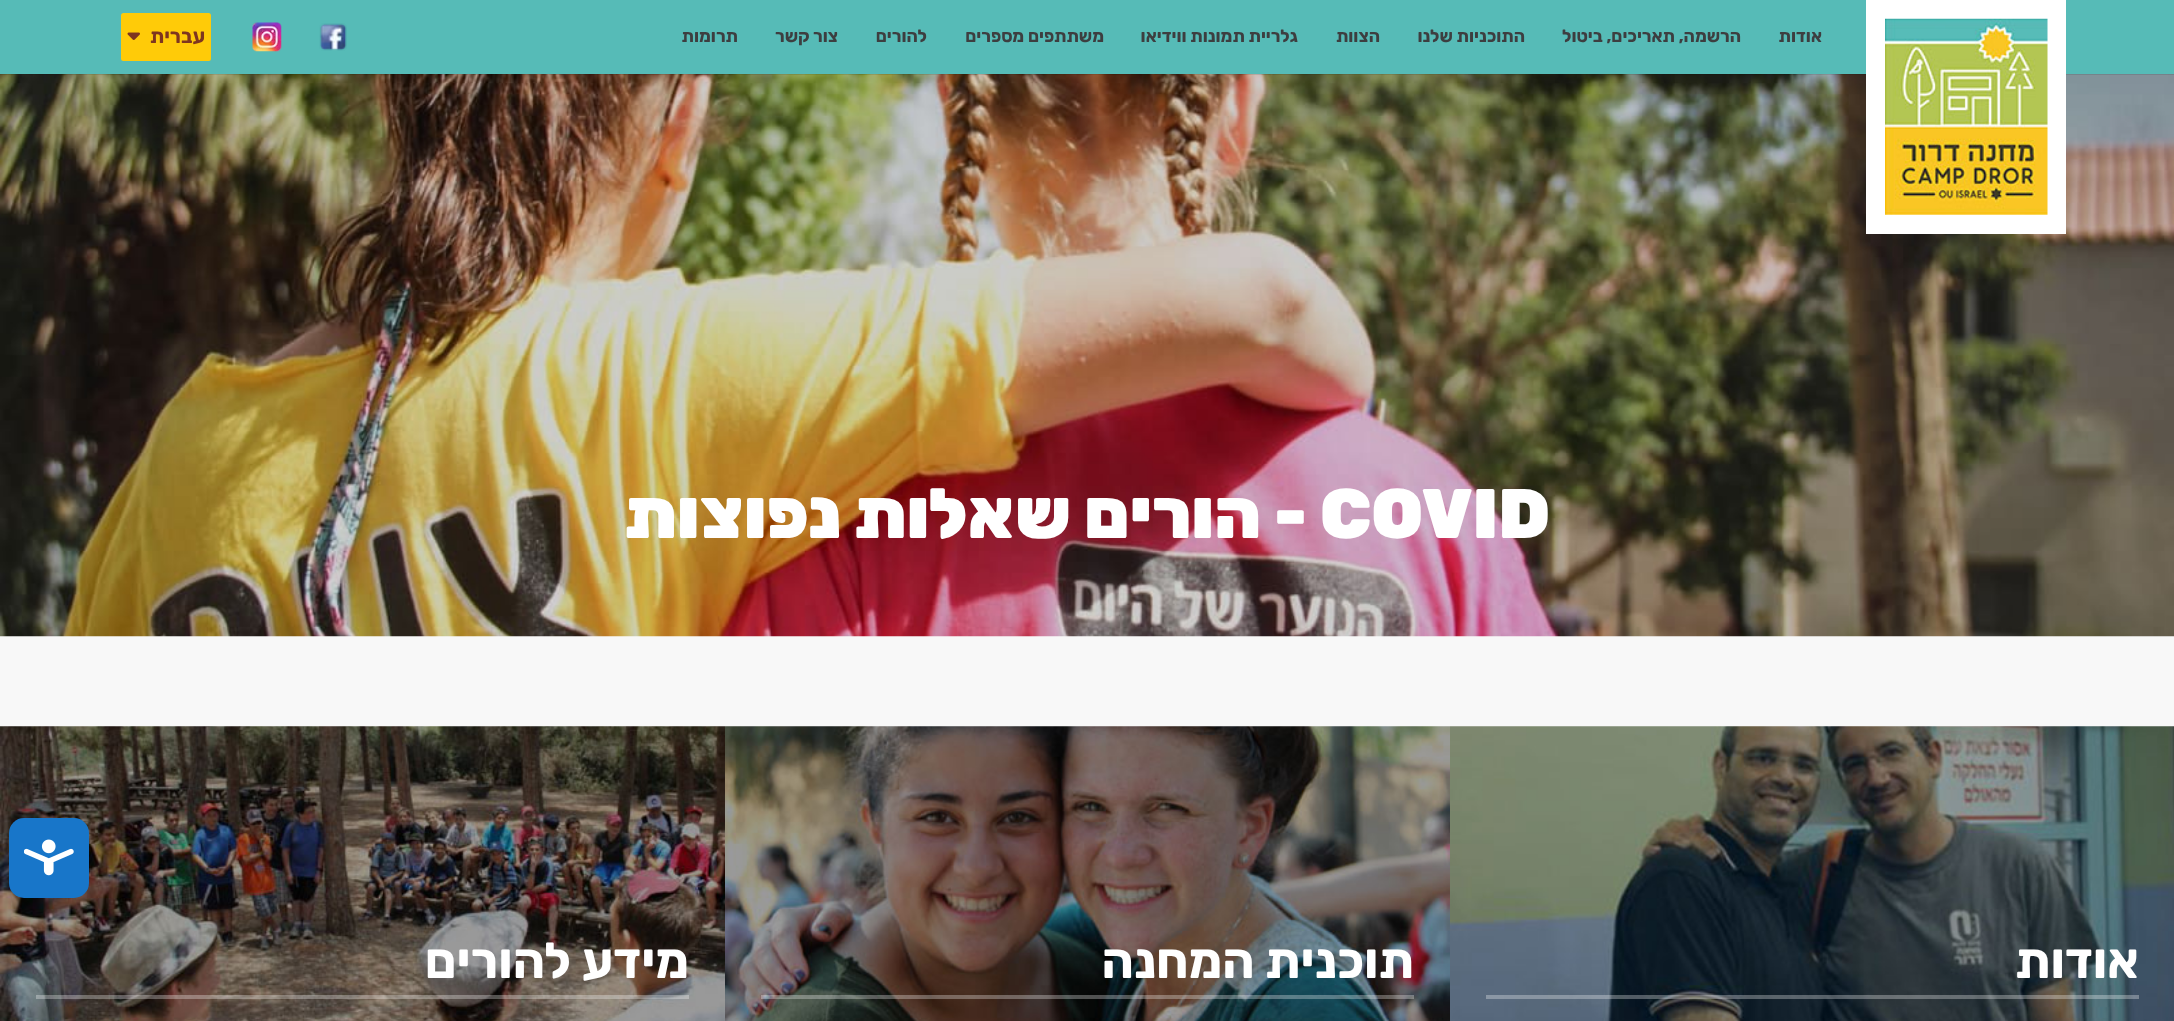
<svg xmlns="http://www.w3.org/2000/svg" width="2174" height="1021">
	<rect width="100%" height="100%" fill="#F8F8F8" />
	<image x="0" y="74" width="2174" height="563" href="assets/img5.png" />
	<rect x="0" y="1" width="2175" height="74" fill="#000000" fill-opacity="0.1" filter="blur(0.5px)" />
	<rect x="0" y="0" width="2174" height="74" fill="#56BBB7" />
	<rect x="1875.5" y="9.5" width="181" height="215" fill="none" stroke="#FFFFFF" stroke-width="19" />
	<image x="1885" y="18" width="163" height="197" href="assets/img1.png" />
	<g font-family="Rubik" font-size="17.5" font-weight="700" direction="rtl" fill="#3D3E40">
		<text x="1822" y="42">אודות</text>
		<text x="1741" y="42">הרשמה, תאריכים, ביטול</text>
		<text x="1525" y="42">התוכניות שלנו</text>
		<text x="1380" y="42">הצוות</text>
		<text x="1298" y="42">גלריית תמונות ווידיאו</text>
		<text x="1104" y="42">משתתפים מספרים</text>
		<text x="927" y="42">להורים</text>
		<text x="838" y="42">צור קשר</text>
		<text x="738" y="42">תרומות</text>
	</g>
	<image x="319" y="23" width="28" height="28" href="assets/img2.png" />
	<image x="252" y="22" width="30" height="30" href="assets/img3.png" />
	<rect x="121" y="13" width="90" height="48" rx="2.5" fill="#FFCB08" />
	<text x="205" y="43" font-family="Rubik" font-size="20" font-weight="700" direction="rtl" fill="#7E3620">עברית</text>
	<image x="127" y="32" width="13" height="8" href="assets/img4.png" />
	<text x="1320" y="538" font-family="Rubik" font-size="70" font-weight="900" fill="#FFFFFF">COVID</text>
	<text x="1307" y="538" font-family="Rubik" font-size="70" font-weight="900" direction="rtl" fill="#FFFFFF">- הורים שאלות נפוצות</text>
	<image x="0" y="726" width="725" height="295" href="assets/img9.png" />
	<rect x="9" y="818" width="80" height="80" rx="15" fill="#1876C9" />
	<image x="24" y="839" width="50" height="37" href="assets/img6.png" />
	<image x="1450" y="726" width="724" height="295" href="assets/img7.png" />
	<text x="2139" y="978" font-family="Rubik" font-size="50" font-weight="700" direction="rtl" fill="#FFFFFF">אודות</text>
	<rect x="1486" y="995" width="653" height="4" fill="#FFFFFF" fill-opacity="0.3" />
	<image x="725" y="726" width="725" height="295" href="assets/img8.png" />
	<text x="1414" y="978" font-family="Rubik" font-size="50" font-weight="700" direction="rtl" fill="#FFFFFF">תוכנית המחנה</text>
	<rect x="761" y="995" width="653" height="4" fill="#FFFFFF" fill-opacity="0.3" />
	<text x="689" y="978" font-family="Rubik" font-size="50" font-weight="700" direction="rtl" fill="#FFFFFF">מידע להורים</text>
	<rect x="36" y="995" width="653" height="4" fill="#FFFFFF" fill-opacity="0.3" />
</svg>
